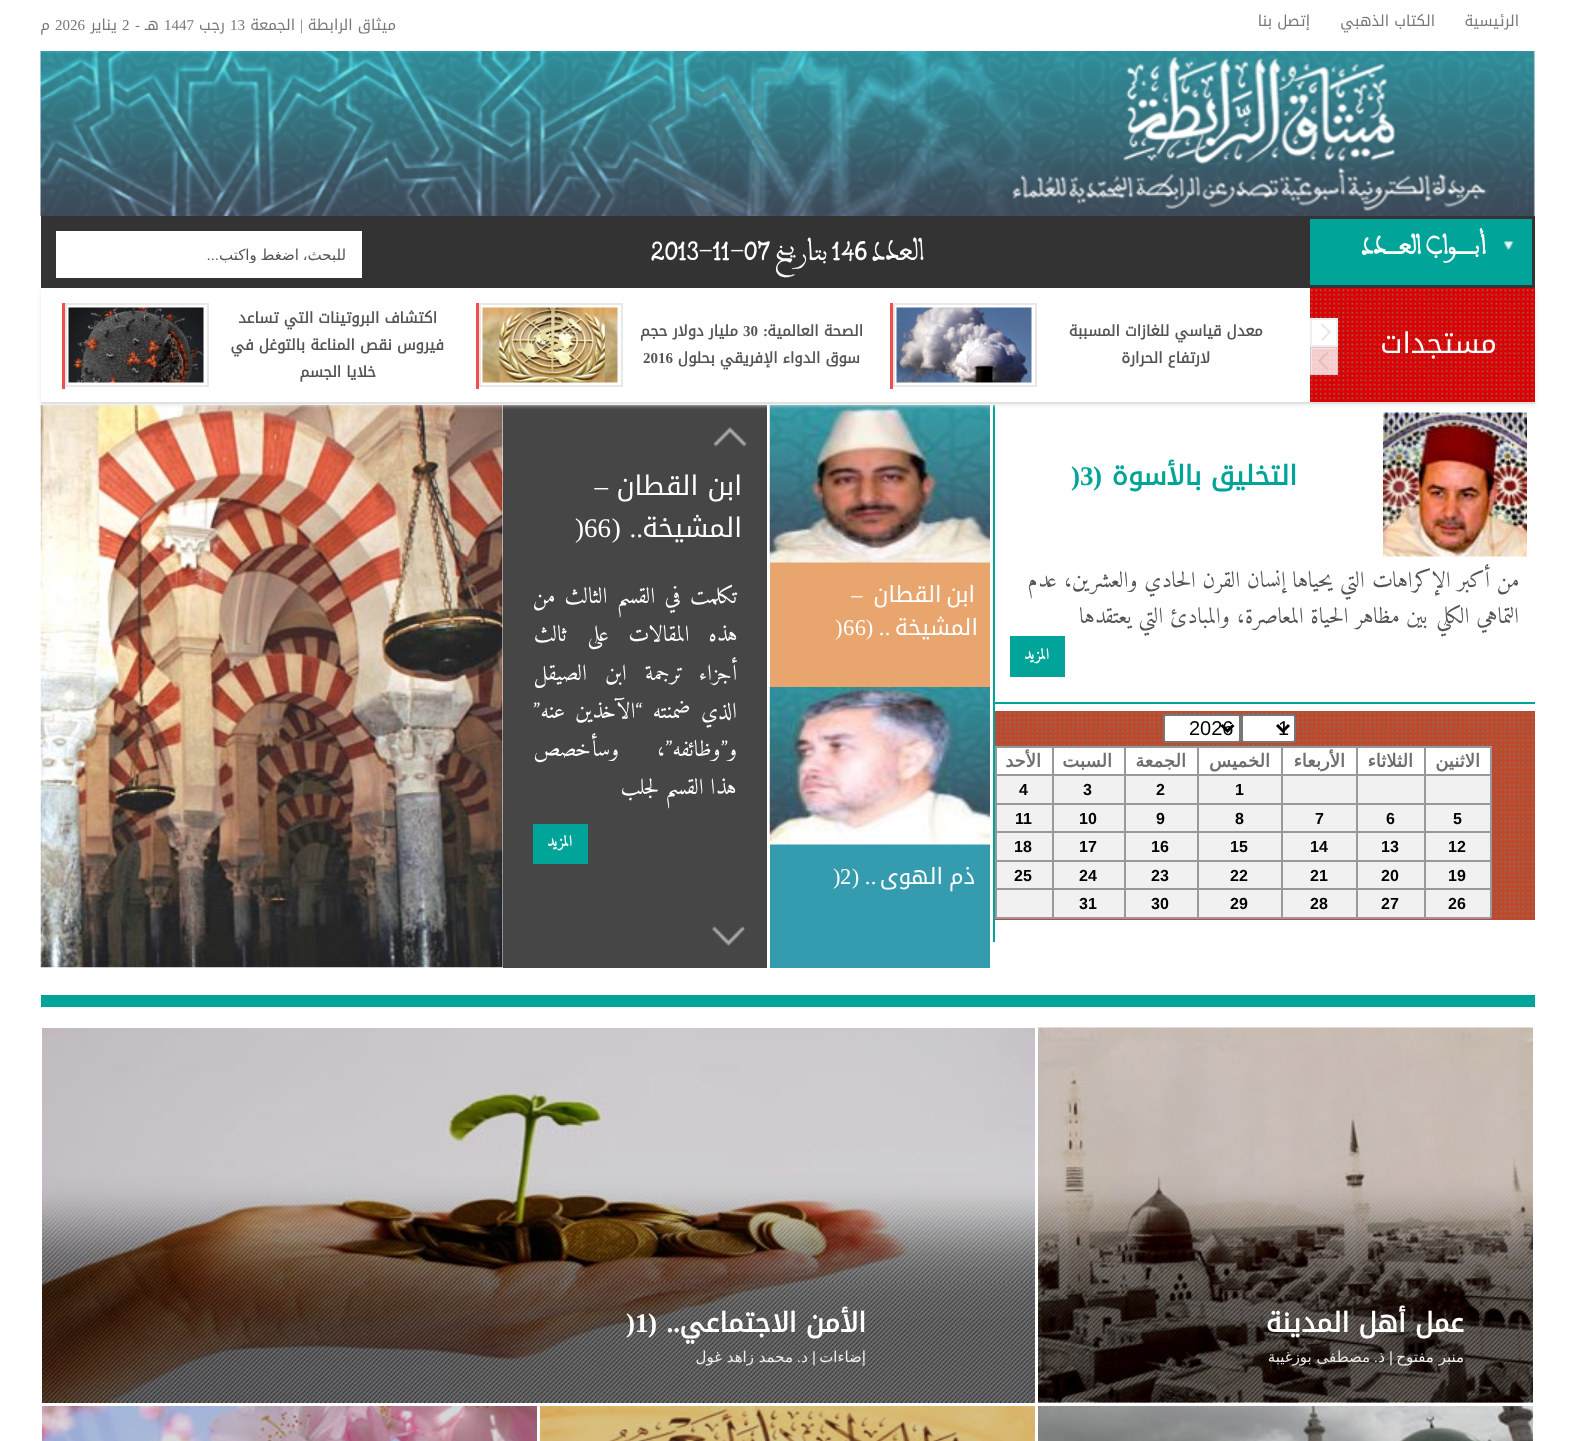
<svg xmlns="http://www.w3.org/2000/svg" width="1574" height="1441">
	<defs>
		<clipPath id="clip1"><rect x="71" y="246" width="276" height="17" /></clipPath>
	</defs>
	<rect width="100%" height="100%" fill="#FFFFFF" />
	<g font-family="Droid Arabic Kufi" font-size="15" direction="rtl" fill="#777777">
		<text x="1519" y="26">الرئيسية</text>
		<text x="1435" y="26">الكتاب الذهبي</text>
		<text x="1310" y="26">إتصل بنا</text>
		<text x="396" y="30">ميثاق الرابطة</text>
	</g>
	<text x="303" y="30" font-family="Liberation Serif" font-size="15" direction="rtl" fill="#777777">|</text>
	<text x="295" y="30" font-family="Droid Arabic Kufi" font-size="15" direction="rtl" fill="#777777">الجمعة</text>
	<text x="230" y="30" font-family="Liberation Serif" font-size="15" fill="#777777">13</text>
	<text x="225" y="30" font-family="Droid Arabic Kufi" font-size="15" direction="rtl" fill="#777777">رجب</text>
	<text x="164" y="30" font-family="Liberation Serif" font-size="15" fill="#777777">1447</text>
	<text x="159" y="30" font-family="Droid Arabic Kufi" font-size="15" direction="rtl" fill="#777777">هـ</text>
	<text x="140" y="30" font-family="Liberation Serif" font-size="15" direction="rtl" fill="#777777">-</text>
	<text x="122" y="30" font-family="Liberation Serif" font-size="15" fill="#777777">2</text>
	<text x="117" y="30" font-family="Droid Arabic Kufi" font-size="15" direction="rtl" fill="#777777">يناير</text>
	<text x="55" y="30" font-family="Liberation Serif" font-size="15" fill="#777777">2026</text>
	<text x="50" y="30" font-family="Droid Arabic Kufi" font-size="15" direction="rtl" fill="#777777">م</text>
	<image x="40" y="51" width="1495" height="165" href="assets/img1.png" />
	<rect x="993" y="405" width="2" height="537" fill="#00A498" />
	<rect x="770" y="562" width="220" height="125" fill="#E8A56D" />
	<image x="769" y="405" width="221" height="158" href="assets/img11.png" />
	<rect x="503" y="405" width="264" height="563" fill="#464646" />
	<image x="40" y="405" width="463" height="563" href="assets/img14.png" />
	<rect x="41" y="290" width="1494" height="115" fill="#E9E9E9" filter="blur(2px)" />
	<rect x="41" y="216" width="1494" height="72" fill="#333333" />
	<rect x="1310" y="219" width="222" height="66" fill="#00A498" />
	<image x="1503" y="241" width="11" height="10" href="assets/img2.png" />
	<text x="1486" y="254" font-family="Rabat" font-size="24" font-weight="700" direction="rtl" fill="#FFFFFF">أبـــــــواب العـــــدد</text>
	<text x="924" y="260" font-family="Rabat" font-size="27" direction="rtl" fill="#FFFFFF">العدد</text>
	<text x="832" y="260" font-family="Rabat" font-size="27" fill="#FFFFFF">146</text>
	<text x="827" y="260" font-family="Rabat" font-size="27" direction="rtl" fill="#FFFFFF">بتاريخ</text>
	<text x="651" y="260" font-family="Rabat" font-size="27" fill="#FFFFFF">2013-11-07</text>
	<rect x="56" y="231" width="306" height="47" fill="#FFFFFF" />
	<g clip-path="url(#clip1)">
		<text x="346" y="260" word-spacing="-1" font-family="DejaVu Sans" font-size="15" direction="rtl" fill="#555555">للبحث، اضغط واكتب</text>
	</g>
	<text x="219" y="260" font-family="Liberation Sans" font-size="15" direction="rtl" fill="#555555">...</text>
	<rect x="41" y="288" width="1269" height="114" fill="#FFFFFF" />
	<rect x="41" y="402" width="1494" height="2" fill="#E1E1E1" />
	<rect x="1310" y="288" width="225" height="114" fill="#DD0000" />
	<image x="1310" y="289" width="224" height="113" href="assets/img3.png" />
	<text x="1497" y="353" font-family="Droid Arabic Kufi" font-size="28.5" direction="rtl" fill="#FFFFFF">مستجدات</text>
	<image x="1312" y="320" width="24" height="25" href="assets/img4.png" />
	<rect x="1311" y="319" width="26" height="27" fill="none" stroke="#EEEEEE" stroke-width="2" />
	<rect x="890" y="303" width="3" height="86" fill="#F14D4D" />
	<g font-family="Droid Arabic Kufi" font-size="15" font-weight="700" direction="rtl" fill="#555555">
		<text x="1263" y="336">معدل قياسي للغازات المسببة</text>
		<text x="1210" y="363">لارتفاع الحرارة</text>
	</g>
	<rect x="894" y="304" width="142" height="82" fill="none" stroke="#E8E8E8" stroke-width="2" />
	<image x="896" y="307" width="136" height="76" href="assets/img5.png" />
	<rect x="476" y="303" width="3" height="86" fill="#F14D4D" />
	<text x="863" y="336" font-family="Droid Arabic Kufi" font-size="15" font-weight="700" direction="rtl" fill="#555555">الصحة العالمية</text>
	<text x="768" y="336" font-family="Liberation Serif" font-size="15" font-weight="700" direction="rtl" fill="#555555">:</text>
	<text x="743" y="336" font-family="Liberation Serif" font-size="15" font-weight="700" fill="#555555">30</text>
	<g font-family="Droid Arabic Kufi" font-size="15" font-weight="700" direction="rtl" fill="#555555">
		<text x="738" y="336">مليار دولار حجم</text>
		<text x="860" y="363">سوق الدواء الإفريقي بحلول</text>
	</g>
	<text x="643" y="363" font-family="Liberation Serif" font-size="15" font-weight="700" fill="#555555">2016</text>
	<rect x="480" y="304" width="142" height="82" fill="none" stroke="#E8E8E8" stroke-width="2" />
	<image x="482" y="307" width="136" height="76" href="assets/img6.png" />
	<rect x="62" y="303" width="3" height="86" fill="#F14D4D" />
	<g font-family="Droid Arabic Kufi" font-size="15" font-weight="700" direction="rtl" fill="#555555">
		<text x="437" y="323">اكتشاف البروتينات التي تساعد</text>
		<text x="444" y="350">فيروس نقص المناعة بالتوغل في</text>
		<text x="376" y="377">خلايا الجسم</text>
	</g>
	<rect x="66" y="304" width="142" height="82" fill="none" stroke="#E8E8E8" stroke-width="2" />
	<image x="68" y="307" width="136" height="76" href="assets/img7.png" />
	<image x="1311" y="348" width="26" height="26" href="assets/img8.png" />
	<rect x="1311" y="348" width="26" height="26" fill="none" stroke="#EEEEEE" stroke-opacity="0.8" stroke-width="2" />
	<rect x="41" y="995" width="1494" height="12" fill="#00A498" />
	<rect x="995" y="702" width="540" height="2" fill="#00A498" />
	<image x="1383" y="412" width="144" height="145" href="assets/img9.png" />
	<text x="1297" y="485" font-family="Droid Arabic Kufi" font-size="27" font-weight="700" direction="rtl" fill="#00A498">التخليق بالأسوة</text>
	<text x="1102" y="485" font-family="Liberation Serif" font-size="27" font-weight="700" direction="rtl" fill="#00A498">(</text>
	<text x="1071" y="485" font-family="Liberation Serif" font-size="27" font-weight="700" fill="#00A498">)3</text>
	<g font-family="Amiri" font-size="22.5" direction="rtl" fill="#555555">
		<text x="1519" y="587">من أكبر الإكراهات التي يحياها إنسان القرن الحادي والعشرين، عدم</text>
		<text x="1519" y="623">التماهي الكلي بين مظاهر الحياة المعاصرة، والمبادئ التي يعتقدها</text>
	</g>
	<rect x="1010" y="636" width="55" height="41" fill="#00A498" />
	<text x="1049" y="659" font-family="Amiri" font-size="15" font-weight="700" direction="rtl" fill="#FFFFFF">المزيد</text>
	<rect x="995" y="711" width="540" height="209" fill="#BF492B" />
	<image x="995" y="712" width="539" height="208" href="assets/img10.png" />
	<text x="1594" y="835" transform="rotate(-90 1594 835)" font-family="DejaVu Sans" font-size="27" direction="rtl" fill="#FFFFFF">الأعداد</text>
	<rect x="1242" y="715" width="53" height="27" rx="2" fill="#FFFFFF" stroke="#767676" stroke-width="2" />
	<path d="M1277 725L1283 731L1289 725" fill="none" stroke="#000000" stroke-width="3" />
	<text x="1278" y="735" font-family="Liberation Sans" font-size="20" fill="#000000">1</text>
	<rect x="1164" y="715" width="76" height="27" rx="2" fill="#FFFFFF" stroke="#767676" stroke-width="2" />
	<path d="M1221.5 725L1227.5 731L1233.5 725" fill="none" stroke="#000000" stroke-width="3" />
	<text x="1189" y="735" font-family="Liberation Sans" font-size="20" fill="#000000">2026</text>
	<rect x="1426" y="748" width="64" height="26" fill="#FFFFFF" />
	<rect x="995" y="746" width="58" height="2" fill="#999999" />
	<rect x="995" y="774" width="58" height="2" fill="#999999" />
	<rect x="995" y="803" width="58" height="2" fill="#999999" />
	<rect x="995" y="831" width="58" height="2" fill="#999999" />
	<rect x="995" y="860" width="58" height="2" fill="#999999" />
	<rect x="995" y="888" width="58" height="2" fill="#999999" />
	<rect x="1052" y="888" width="2" height="30" fill="#999999" />
	<rect x="1052" y="888" width="73" height="2" fill="#999999" />
	<rect x="1052" y="860" width="2" height="30" fill="#999999" />
	<rect x="1052" y="860" width="73" height="2" fill="#999999" />
	<rect x="1052" y="831" width="2" height="30" fill="#999999" />
	<rect x="1052" y="831" width="73" height="2" fill="#999999" />
	<rect x="1052" y="803" width="2" height="30" fill="#999999" />
	<rect x="1052" y="803" width="73" height="2" fill="#999999" />
	<rect x="1052" y="774" width="2" height="30" fill="#999999" />
	<rect x="1052" y="774" width="73" height="2" fill="#999999" />
	<rect x="1052" y="746" width="2" height="30" fill="#999999" />
	<rect x="1052" y="746" width="73" height="2" fill="#999999" />
	<rect x="1124" y="888" width="2" height="30" fill="#999999" />
	<rect x="1124" y="888" width="75" height="2" fill="#999999" />
	<rect x="1124" y="860" width="2" height="30" fill="#999999" />
	<rect x="1124" y="860" width="75" height="2" fill="#999999" />
	<rect x="1124" y="831" width="2" height="30" fill="#999999" />
	<rect x="1124" y="831" width="75" height="2" fill="#999999" />
	<rect x="1124" y="803" width="2" height="30" fill="#999999" />
	<rect x="1124" y="803" width="75" height="2" fill="#999999" />
	<rect x="1124" y="774" width="2" height="30" fill="#999999" />
	<rect x="1124" y="774" width="75" height="2" fill="#999999" />
	<rect x="1124" y="746" width="2" height="30" fill="#999999" />
	<rect x="1124" y="746" width="75" height="2" fill="#999999" />
	<rect x="1197" y="888" width="2" height="30" fill="#999999" />
	<rect x="1197" y="888" width="86" height="2" fill="#999999" />
	<rect x="1197" y="860" width="2" height="30" fill="#999999" />
	<rect x="1197" y="860" width="86" height="2" fill="#999999" />
	<rect x="1197" y="831" width="2" height="30" fill="#999999" />
	<rect x="1197" y="831" width="86" height="2" fill="#999999" />
	<rect x="1197" y="803" width="2" height="30" fill="#999999" />
	<rect x="1197" y="803" width="86" height="2" fill="#999999" />
	<rect x="1197" y="774" width="2" height="30" fill="#999999" />
	<rect x="1197" y="774" width="86" height="2" fill="#999999" />
	<rect x="1197" y="746" width="2" height="30" fill="#999999" />
	<rect x="1197" y="746" width="86" height="2" fill="#999999" />
	<rect x="1281" y="888" width="2" height="30" fill="#999999" />
	<rect x="1281" y="888" width="77" height="2" fill="#999999" />
	<rect x="1281" y="860" width="2" height="30" fill="#999999" />
	<rect x="1281" y="860" width="77" height="2" fill="#999999" />
	<rect x="1281" y="831" width="2" height="30" fill="#999999" />
	<rect x="1281" y="831" width="77" height="2" fill="#999999" />
	<rect x="1281" y="803" width="2" height="30" fill="#999999" />
	<rect x="1281" y="803" width="77" height="2" fill="#999999" />
	<rect x="1281" y="774" width="2" height="30" fill="#999999" />
	<rect x="1281" y="774" width="77" height="2" fill="#999999" />
	<rect x="1281" y="746" width="2" height="30" fill="#999999" />
	<rect x="1281" y="746" width="77" height="2" fill="#999999" />
	<rect x="1356" y="888" width="2" height="30" fill="#999999" />
	<rect x="1356" y="888" width="69" height="2" fill="#999999" />
	<rect x="1356" y="860" width="2" height="30" fill="#999999" />
	<rect x="1356" y="860" width="69" height="2" fill="#999999" />
	<rect x="1356" y="831" width="2" height="30" fill="#999999" />
	<rect x="1356" y="831" width="69" height="2" fill="#999999" />
	<rect x="1356" y="803" width="2" height="30" fill="#999999" />
	<rect x="1356" y="803" width="69" height="2" fill="#999999" />
	<rect x="1356" y="774" width="2" height="30" fill="#999999" />
	<rect x="1356" y="774" width="69" height="2" fill="#999999" />
	<rect x="1356" y="746" width="2" height="30" fill="#999999" />
	<rect x="1356" y="746" width="69" height="2" fill="#999999" />
	<rect x="1424" y="888" width="2" height="30" fill="#999999" />
	<rect x="1424" y="888" width="67" height="2" fill="#999999" />
	<rect x="1424" y="860" width="2" height="30" fill="#999999" />
	<rect x="1424" y="860" width="67" height="2" fill="#999999" />
	<rect x="1424" y="831" width="2" height="30" fill="#999999" />
	<rect x="1424" y="831" width="67" height="2" fill="#999999" />
	<rect x="1424" y="803" width="2" height="30" fill="#999999" />
	<rect x="1424" y="803" width="67" height="2" fill="#999999" />
	<rect x="1424" y="774" width="2" height="30" fill="#999999" />
	<rect x="1424" y="774" width="67" height="2" fill="#999999" />
	<rect x="1424" y="746" width="2" height="30" fill="#999999" />
	<rect x="1424" y="746" width="67" height="2" fill="#999999" />
	<rect x="1490" y="888" width="2" height="30" fill="#999999" />
	<rect x="1490" y="860" width="2" height="30" fill="#999999" />
	<rect x="1490" y="831" width="2" height="30" fill="#999999" />
	<rect x="1490" y="803" width="2" height="30" fill="#999999" />
	<rect x="1490" y="774" width="2" height="30" fill="#999999" />
	<rect x="1490" y="746" width="2" height="30" fill="#999999" />
	<text x="1480" y="767" font-family="DejaVu Sans" font-size="18" font-weight="700" direction="rtl" fill="#6D6E72">الاثنين</text>
	<rect x="1358" y="748" width="66" height="26" fill="#FFFFFF" />
	<text x="1413" y="767" font-family="DejaVu Sans" font-size="18" font-weight="700" direction="rtl" fill="#6D6E72">الثلاثاء</text>
	<rect x="1283" y="748" width="73" height="26" fill="#FFFFFF" />
	<text x="1345" y="767" font-family="DejaVu Sans" font-size="18" font-weight="700" direction="rtl" fill="#6D6E72">الأربعاء</text>
	<rect x="1199" y="748" width="82" height="26" fill="#FFFFFF" />
	<text x="1270" y="767" font-family="DejaVu Sans" font-size="18" font-weight="700" direction="rtl" fill="#6D6E72">الخميس</text>
	<rect x="1126" y="748" width="71" height="26" fill="#FFFFFF" />
	<text x="1186" y="767" font-family="DejaVu Sans" font-size="18" font-weight="700" direction="rtl" fill="#6D6E72">الجمعة</text>
	<rect x="1054" y="748" width="70" height="26" fill="#FFFFFF" />
	<text x="1112" y="767" font-family="DejaVu Sans" font-size="18" font-weight="700" direction="rtl" fill="#6D6E72">السبت</text>
	<rect x="997" y="748" width="55" height="26" fill="#FFFFFF" />
	<rect x="995" y="917" width="58" height="2" fill="#999999" />
	<rect x="995" y="888" width="2" height="30" fill="#999999" />
	<rect x="995" y="860" width="2" height="30" fill="#999999" />
	<rect x="995" y="831" width="2" height="30" fill="#999999" />
	<rect x="995" y="803" width="2" height="30" fill="#999999" />
	<rect x="995" y="774" width="2" height="30" fill="#999999" />
	<rect x="995" y="746" width="2" height="30" fill="#999999" />
	<text x="1041" y="767" font-family="DejaVu Sans" font-size="18" font-weight="700" direction="rtl" fill="#6D6E72">الأحد</text>
	<rect x="1426" y="776" width="64" height="27" fill="#F1F1F1" />
	<rect x="1358" y="776" width="66" height="27" fill="#F1F1F1" />
	<rect x="1283" y="776" width="73" height="27" fill="#F1F1F1" />
	<rect x="1199" y="776" width="82" height="27" fill="#F1F1F1" />
	<text x="1235" y="795" font-family="Liberation Sans" font-size="16" font-weight="700" fill="#000000">1</text>
	<rect x="1126" y="776" width="71" height="27" fill="#F1F1F1" />
	<text x="1156" y="795" font-family="Liberation Sans" font-size="16" font-weight="700" fill="#000000">2</text>
	<rect x="1054" y="776" width="70" height="27" fill="#F1F1F1" />
	<text x="1083" y="795" font-family="Liberation Sans" font-size="16" font-weight="700" fill="#000000">3</text>
	<rect x="997" y="776" width="55" height="27" fill="#F1F1F1" />
	<text x="1019" y="795" font-family="Liberation Sans" font-size="16" font-weight="700" fill="#000000">4</text>
	<rect x="1426" y="805" width="64" height="26" fill="#F1F1F1" />
	<text x="1453" y="824" font-family="Liberation Sans" font-size="16" font-weight="700" fill="#000000">5</text>
	<rect x="1358" y="805" width="66" height="26" fill="#F1F1F1" />
	<text x="1386" y="824" font-family="Liberation Sans" font-size="16" font-weight="700" fill="#000000">6</text>
	<rect x="1283" y="805" width="73" height="26" fill="#F1F1F1" />
	<text x="1315" y="824" font-family="Liberation Sans" font-size="16" font-weight="700" fill="#000000">7</text>
	<rect x="1199" y="805" width="82" height="26" fill="#F1F1F1" />
	<text x="1235" y="824" font-family="Liberation Sans" font-size="16" font-weight="700" fill="#000000">8</text>
	<rect x="1126" y="805" width="71" height="26" fill="#F1F1F1" />
	<text x="1156" y="824" font-family="Liberation Sans" font-size="16" font-weight="700" fill="#000000">9</text>
	<rect x="1054" y="805" width="70" height="26" fill="#F1F1F1" />
	<text x="1079" y="824" font-family="Liberation Sans" font-size="16" font-weight="700" fill="#000000">10</text>
	<rect x="997" y="805" width="55" height="26" fill="#F1F1F1" />
	<text x="1015" y="824" font-family="Liberation Sans" font-size="16" font-weight="700" fill="#000000">11</text>
	<rect x="1426" y="833" width="64" height="27" fill="#F1F1F1" />
	<text x="1448" y="852" font-family="Liberation Sans" font-size="16" font-weight="700" fill="#000000">12</text>
	<rect x="1358" y="833" width="66" height="27" fill="#F1F1F1" />
	<text x="1381" y="852" font-family="Liberation Sans" font-size="16" font-weight="700" fill="#000000">13</text>
	<rect x="1283" y="833" width="73" height="27" fill="#F1F1F1" />
	<text x="1310" y="852" font-family="Liberation Sans" font-size="16" font-weight="700" fill="#000000">14</text>
	<rect x="1199" y="833" width="82" height="27" fill="#F1F1F1" />
	<text x="1230" y="852" font-family="Liberation Sans" font-size="16" font-weight="700" fill="#000000">15</text>
	<rect x="1126" y="833" width="71" height="27" fill="#F1F1F1" />
	<text x="1151" y="852" font-family="Liberation Sans" font-size="16" font-weight="700" fill="#000000">16</text>
	<rect x="1054" y="833" width="70" height="27" fill="#F1F1F1" />
	<text x="1079" y="852" font-family="Liberation Sans" font-size="16" font-weight="700" fill="#000000">17</text>
	<rect x="997" y="833" width="55" height="27" fill="#F1F1F1" />
	<text x="1014" y="852" font-family="Liberation Sans" font-size="16" font-weight="700" fill="#000000">18</text>
	<rect x="1426" y="862" width="64" height="26" fill="#F1F1F1" />
	<text x="1448" y="881" font-family="Liberation Sans" font-size="16" font-weight="700" fill="#000000">19</text>
	<rect x="1358" y="862" width="66" height="26" fill="#F1F1F1" />
	<text x="1381" y="881" font-family="Liberation Sans" font-size="16" font-weight="700" fill="#000000">20</text>
	<rect x="1283" y="862" width="73" height="26" fill="#F1F1F1" />
	<text x="1310" y="881" font-family="Liberation Sans" font-size="16" font-weight="700" fill="#000000">21</text>
	<rect x="1199" y="862" width="82" height="26" fill="#F1F1F1" />
	<text x="1230" y="881" font-family="Liberation Sans" font-size="16" font-weight="700" fill="#000000">22</text>
	<rect x="1126" y="862" width="71" height="26" fill="#F1F1F1" />
	<text x="1151" y="881" font-family="Liberation Sans" font-size="16" font-weight="700" fill="#000000">23</text>
	<rect x="1054" y="862" width="70" height="26" fill="#F1F1F1" />
	<text x="1079" y="881" font-family="Liberation Sans" font-size="16" font-weight="700" fill="#000000">24</text>
	<rect x="997" y="862" width="55" height="26" fill="#F1F1F1" />
	<text x="1014" y="881" font-family="Liberation Sans" font-size="16" font-weight="700" fill="#000000">25</text>
	<rect x="1426" y="890" width="64" height="27" fill="#F1F1F1" />
	<rect x="1052" y="917" width="73" height="2" fill="#999999" />
	<rect x="1124" y="917" width="75" height="2" fill="#999999" />
	<rect x="1197" y="917" width="86" height="2" fill="#999999" />
	<rect x="1281" y="917" width="77" height="2" fill="#999999" />
	<rect x="1356" y="917" width="69" height="2" fill="#999999" />
	<rect x="1424" y="917" width="67" height="2" fill="#999999" />
	<text x="1448" y="909" font-family="Liberation Sans" font-size="16" font-weight="700" fill="#000000">26</text>
	<rect x="1358" y="890" width="66" height="27" fill="#F1F1F1" />
	<text x="1381" y="909" font-family="Liberation Sans" font-size="16" font-weight="700" fill="#000000">27</text>
	<rect x="1283" y="890" width="73" height="27" fill="#F1F1F1" />
	<text x="1310" y="909" font-family="Liberation Sans" font-size="16" font-weight="700" fill="#000000">28</text>
	<rect x="1199" y="890" width="82" height="27" fill="#F1F1F1" />
	<text x="1230" y="909" font-family="Liberation Sans" font-size="16" font-weight="700" fill="#000000">29</text>
	<rect x="1126" y="890" width="71" height="27" fill="#F1F1F1" />
	<text x="1151" y="909" font-family="Liberation Sans" font-size="16" font-weight="700" fill="#000000">30</text>
	<rect x="1054" y="890" width="70" height="27" fill="#F1F1F1" />
	<text x="1079" y="909" font-family="Liberation Sans" font-size="16" font-weight="700" fill="#000000">31</text>
	<rect x="997" y="890" width="55" height="27" fill="#F1F1F1" />
	<text x="975" y="602" word-spacing="-3" font-family="Droid Arabic Kufi" font-size="22.5" letter-spacing="0.5" direction="rtl" fill="#FFFFFF">ابن القطان</text>
	<text x="863" y="602" font-family="Liberation Serif" font-size="22.5" letter-spacing="0.5" direction="rtl" fill="#FFFFFF">–</text>
	<text x="978" y="635" font-family="Droid Arabic Kufi" font-size="22.5" letter-spacing="0.5" direction="rtl" fill="#FFFFFF">المشيخة</text>
	<text x="891" y="635" word-spacing="-1" font-family="Liberation Serif" font-size="22.5" letter-spacing="0.5" direction="rtl" fill="#FFFFFF">.. (</text>
	<g font-family="Liberation Serif" font-size="22.5" letter-spacing="0.5" fill="#FFFFFF">
		<text x="843" y="635">66</text>
		<text x="835" y="635">)</text>
	</g>
	<rect x="770" y="844" width="220" height="124" fill="#359CAF" />
	<image x="769" y="687" width="221" height="158" href="assets/img12.png" />
	<g font-family="Droid Arabic Kufi" font-size="22.5" letter-spacing="0.5" direction="rtl" fill="#FFFFFF">
		<text x="975" y="884">ذم</text>
		<text x="943" y="884">الهوى</text>
	</g>
	<text x="877" y="884" word-spacing="-1" font-family="Liberation Serif" font-size="22.5" letter-spacing="0.5" direction="rtl" fill="#FFFFFF">.. (</text>
	<g font-family="Liberation Serif" font-size="22.5" letter-spacing="0.5" fill="#FFFFFF">
		<text x="840" y="884">2</text>
		<text x="833" y="884">)</text>
	</g>
	<image x="713" y="427" width="34" height="20" href="assets/img13.png" />
	<text x="742" y="495" font-family="Droid Arabic Kufi" font-size="27" direction="rtl" fill="#FFFFFF">ابن القطان</text>
	<text x="608" y="495" font-family="Liberation Serif" font-size="27" direction="rtl" fill="#FFFFFF">–</text>
	<text x="742" y="537" font-family="Droid Arabic Kufi" font-size="27" direction="rtl" fill="#FFFFFF">المشيخة</text>
	<text x="643" y="537" word-spacing="2" font-family="Liberation Serif" font-size="27" direction="rtl" fill="#FFFFFF">.. (</text>
	<text x="575" y="537" font-family="Liberation Serif" font-size="27" fill="#FFFFFF">)66</text>
	<g font-family="Amiri" font-size="22.5" direction="rtl" fill="#FFFFFF">
		<text x="737" y="603" word-spacing="2.5">تكلمت في القسم الثالث من</text>
		<text x="737" y="641" word-spacing="12">هذه المقالات على ثالث</text>
		<text x="737" y="680" word-spacing="11.5">أجزاء ترجمة ابن الصيقل</text>
		<text x="737" y="718" word-spacing="3.5">الذي ضمنته “الآخذين عنه”</text>
		<text x="737" y="756" word-spacing="31">و”وظائفه”، وسأخصص</text>
		<text x="736" y="794">هذا القسم لجلب</text>
	</g>
	<rect x="533" y="824" width="55" height="40" fill="#00A498" />
	<text x="572" y="846" font-family="Amiri" font-size="15" font-weight="700" direction="rtl" fill="#FFFFFF">المزيد</text>
	<image x="712" y="926" width="34" height="20" href="assets/img15.png" />
	<image x="1038" y="1027" width="495" height="376" href="assets/img16.png" />
	<image x="1038" y="1027" width="495" height="376" href="assets/img17.png" />
	<text x="1464" y="1332" font-family="Droid Arabic Kufi" font-size="27" font-weight="700" direction="rtl" fill="#FFFFFF">عمل أهل المدينة</text>
	<text x="1464" y="1362" font-family="DejaVu Sans" font-size="15" direction="rtl" fill="#EFEFEF">منبر مفتوح</text>
	<text x="1393" y="1362" font-family="Liberation Sans" font-size="15" direction="rtl" fill="#EFEFEF">|</text>
	<text x="1385" y="1362" font-family="DejaVu Sans" font-size="15" direction="rtl" fill="#EFEFEF">ذ</text>
	<text x="1378" y="1362" font-family="Liberation Sans" font-size="15" direction="rtl" fill="#EAE9E9">.</text>
	<text x="1370" y="1362" font-family="DejaVu Sans" font-size="15" direction="rtl" fill="#EAE9E9">مصطفى بوزغيبة</text>
	<image x="42" y="1028" width="993" height="375" href="assets/img18.png" />
	<image x="42" y="1028" width="993" height="375" href="assets/img19.png" />
	<text x="866" y="1332" font-family="Droid Arabic Kufi" font-size="27" font-weight="700" direction="rtl" fill="#FFFFFF">الأمن الاجتماعي</text>
	<g font-family="Liberation Serif" font-size="27" font-weight="700" direction="rtl" fill="#FFFFFF">
		<text x="680" y="1332">..</text>
		<text x="657" y="1332">(</text>
	</g>
	<text x="626" y="1332" font-family="Liberation Serif" font-size="27" font-weight="700" fill="#FFFFFF">)1</text>
	<text x="866" y="1362" font-family="DejaVu Sans" font-size="15" direction="rtl" fill="#EFEFEF">إضاءات</text>
	<text x="816" y="1362" font-family="Liberation Sans" font-size="15" direction="rtl" fill="#EFEFEF">|</text>
	<text x="808" y="1362" font-family="DejaVu Sans" font-size="15" direction="rtl" fill="#EFEFEF">د</text>
	<text x="801" y="1362" font-family="Liberation Sans" font-size="15" direction="rtl" fill="#EFEFEF">.</text>
	<text x="793" y="1362" font-family="DejaVu Sans" font-size="15" direction="rtl" fill="#EFEFEF">محمد زاهد غول</text>
	<image x="1038" y="1406" width="495" height="35" href="assets/img20.png" />
	<image x="540" y="1406" width="495" height="35" href="assets/img21.png" />
	<image x="42" y="1406" width="495" height="35" href="assets/img22.png" />
</svg>
